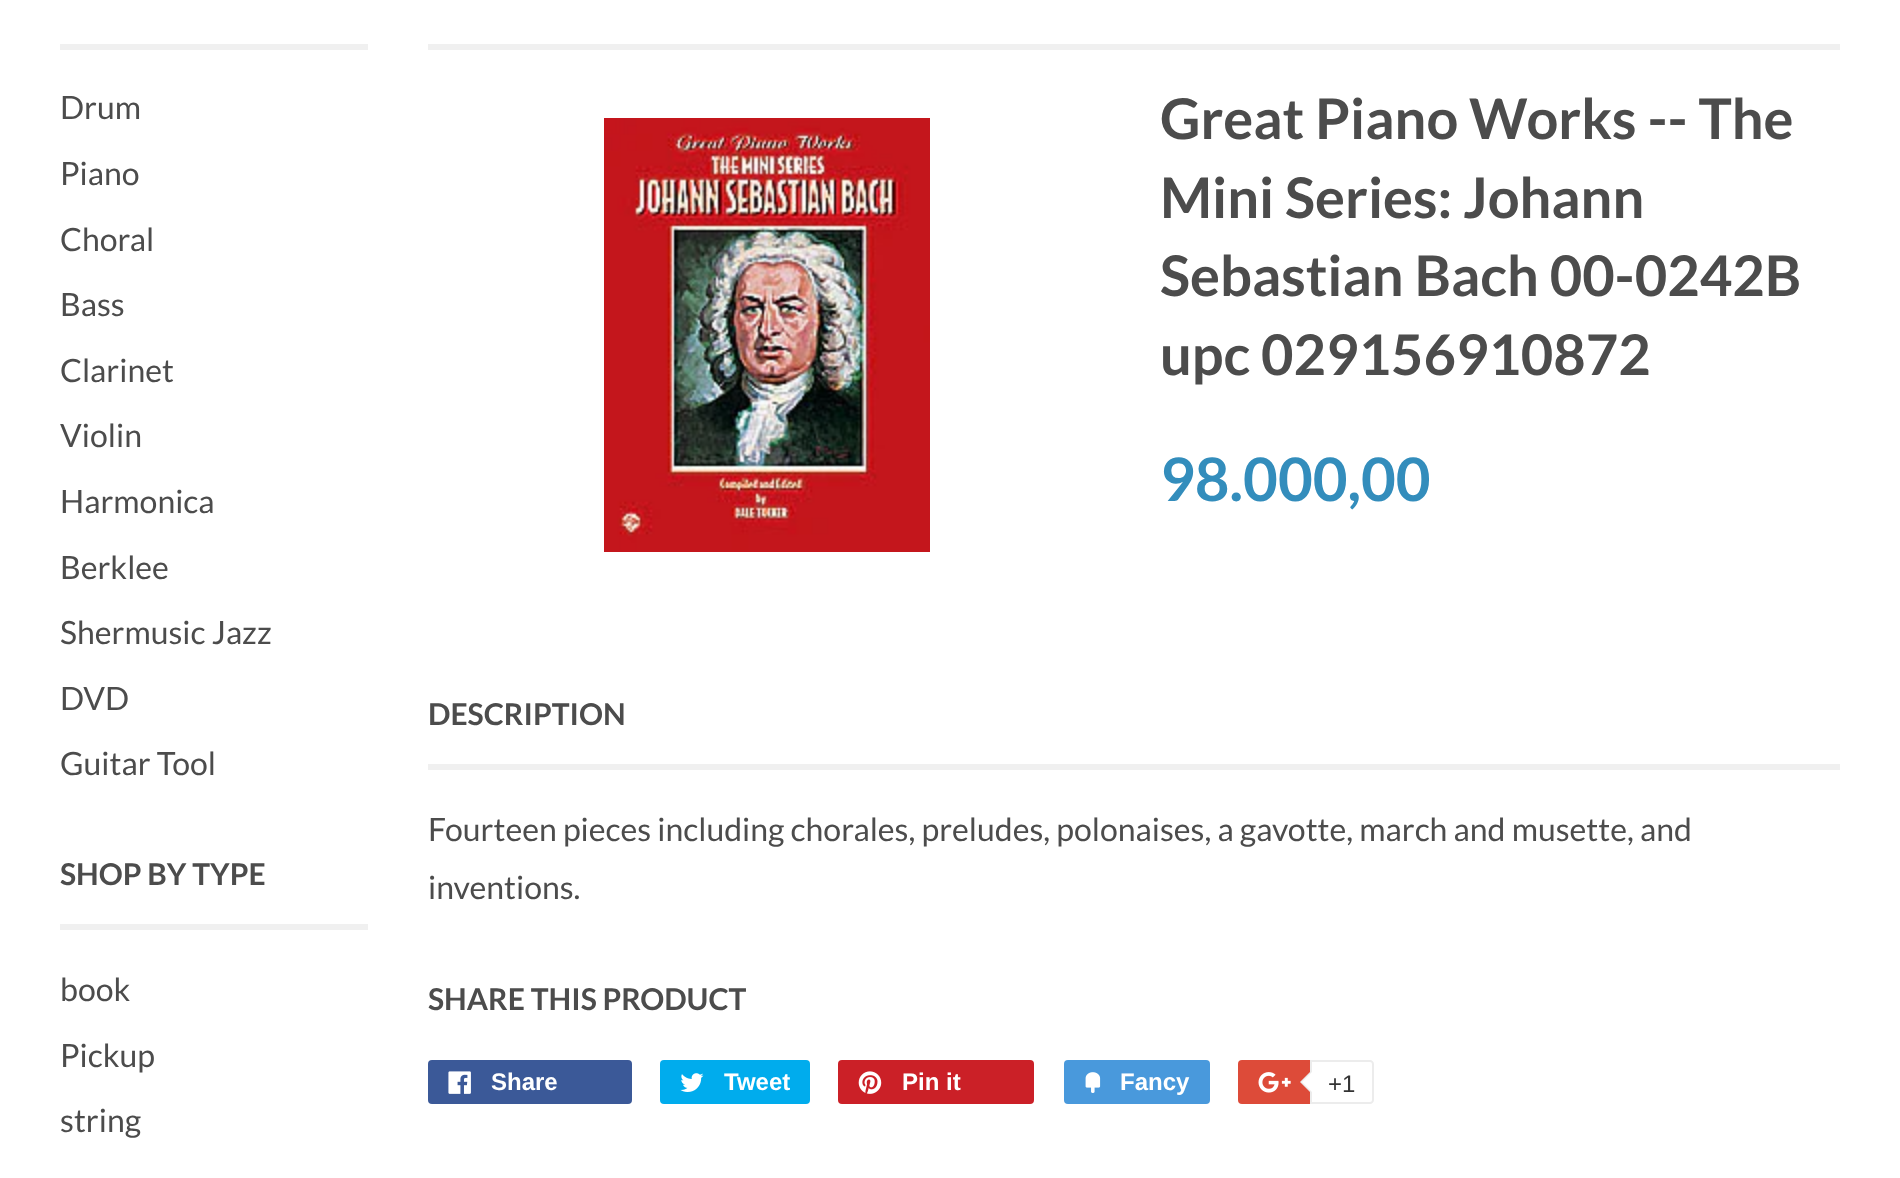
<svg xmlns="http://www.w3.org/2000/svg" width="1900" height="1178">
	<rect width="100%" height="100%" fill="#FFFFFF" />
	<rect x="60" y="44" width="308" height="6" fill="#F0F0F0" />
	<g font-family="Lato" font-size="32" fill="#4C4C4C">
		<text x="60" y="119">Drum</text>
		<text x="60" y="185">Piano</text>
		<text x="60" y="251">Choral</text>
		<text x="60" y="316">Bass</text>
		<text x="60" y="382">Clarinet</text>
		<text x="60" y="447">Violin</text>
		<text x="60" y="513">Harmonica</text>
		<text x="60" y="579">Berklee</text>
		<text x="60" y="644">Shermusic Jazz</text>
		<text x="60" y="710">DVD</text>
		<text x="60" y="775">Guitar Tool</text>
	</g>
	<rect x="60" y="924" width="308" height="6" fill="#F0F0F0" />
	<text x="60" y="885" font-family="Lato" font-size="30" font-weight="700" fill="#4C4C4C">SHOP BY TYPE</text>
	<g font-family="Lato" font-size="32" fill="#4C4C4C">
		<text x="60" y="1001">book</text>
		<text x="60" y="1067">Pickup</text>
		<text x="60" y="1132">string</text>
	</g>
	<rect x="428" y="44" width="1412" height="6" fill="#F0F0F0" />
	<image x="604" y="118" width="326" height="434" href="assets/img1.png" />
	<g font-family="Lato" font-size="56" font-weight="700" fill="#4C4C4C">
		<text x="1160" y="139">Great Piano Works -- The</text>
		<text x="1160" y="218">Mini Series: Johann</text>
		<text x="1160" y="296">Sebastian Bach 00-0242B</text>
		<text x="1160" y="375">upc 029156910872</text>
	</g>
	<text x="1160" y="501" font-family="Lato" font-size="60" font-weight="700" fill="#338DBC">98.000,00</text>
	<rect x="428" y="764" width="1412" height="6" fill="#F0F0F0" />
	<text x="428" y="725" font-family="Lato" font-size="30" font-weight="700" fill="#4C4C4C">DESCRIPTION</text>
	<g font-family="Lato" font-size="32" fill="#4C4C4C">
		<text x="428" y="841">Fourteen pieces including chorales, preludes, polonaises, a gavotte, march and musette, and</text>
		<text x="428" y="899">inventions.</text>
	</g>
	<text x="428" y="1010" font-family="Lato" font-size="30" font-weight="700" fill="#4C4C4C">SHARE THIS PRODUCT</text>
	<rect x="428" y="1060" width="204" height="44" rx="4" fill="#3B5998" />
	<image x="448" y="1071" width="23" height="23" href="assets/img2.png" />
	<text x="491" y="1090" font-family="Liberation Sans" font-size="24" font-weight="700" fill="#FFFFFF">Share</text>
	<rect x="660" y="1060" width="150" height="44" rx="4" fill="#00ACED" />
	<image x="680" y="1073" width="24" height="19" href="assets/img3.png" />
	<text x="724" y="1090" font-family="Liberation Sans" font-size="24" font-weight="700" fill="#FFFFFF">Tweet</text>
	<rect x="838" y="1060" width="196" height="44" rx="4" fill="#CB2027" />
	<image x="858" y="1071" width="24" height="23" href="assets/img4.png" />
	<text x="902" y="1090" font-family="Liberation Sans" font-size="24" font-weight="700" fill="#FFFFFF">Pin it</text>
	<rect x="1064" y="1060" width="146" height="44" rx="4" fill="#4999DC" />
	<image x="1085" y="1072" width="16" height="21" href="assets/img5.png" />
	<text x="1120" y="1090" font-family="Liberation Sans" font-size="24" font-weight="700" fill="#FFFFFF">Fancy</text>
	<rect x="1238" y="1060" width="132" height="44" rx="4" fill="#DD4B39" />
	<image x="1258" y="1072" width="33" height="21" href="assets/img6.png" />
	<path d="M1311 1061H1370C1371.5 1061 1373 1062.5 1373 1064V1100C1373 1101.5 1371.5 1103 1370 1103H1311Z" fill="#FFFFFF" stroke="#ECECEC" stroke-width="2" />
	<path d="M1312 1070V1094L1300 1082Z" fill="#ECECEC" />
	<path d="M1314 1070V1094L1302 1082Z" fill="#FFFFFF" />
	<text x="1328" y="1092" font-family="Liberation Sans" font-size="24" fill="#333333">+1</text>
</svg>
